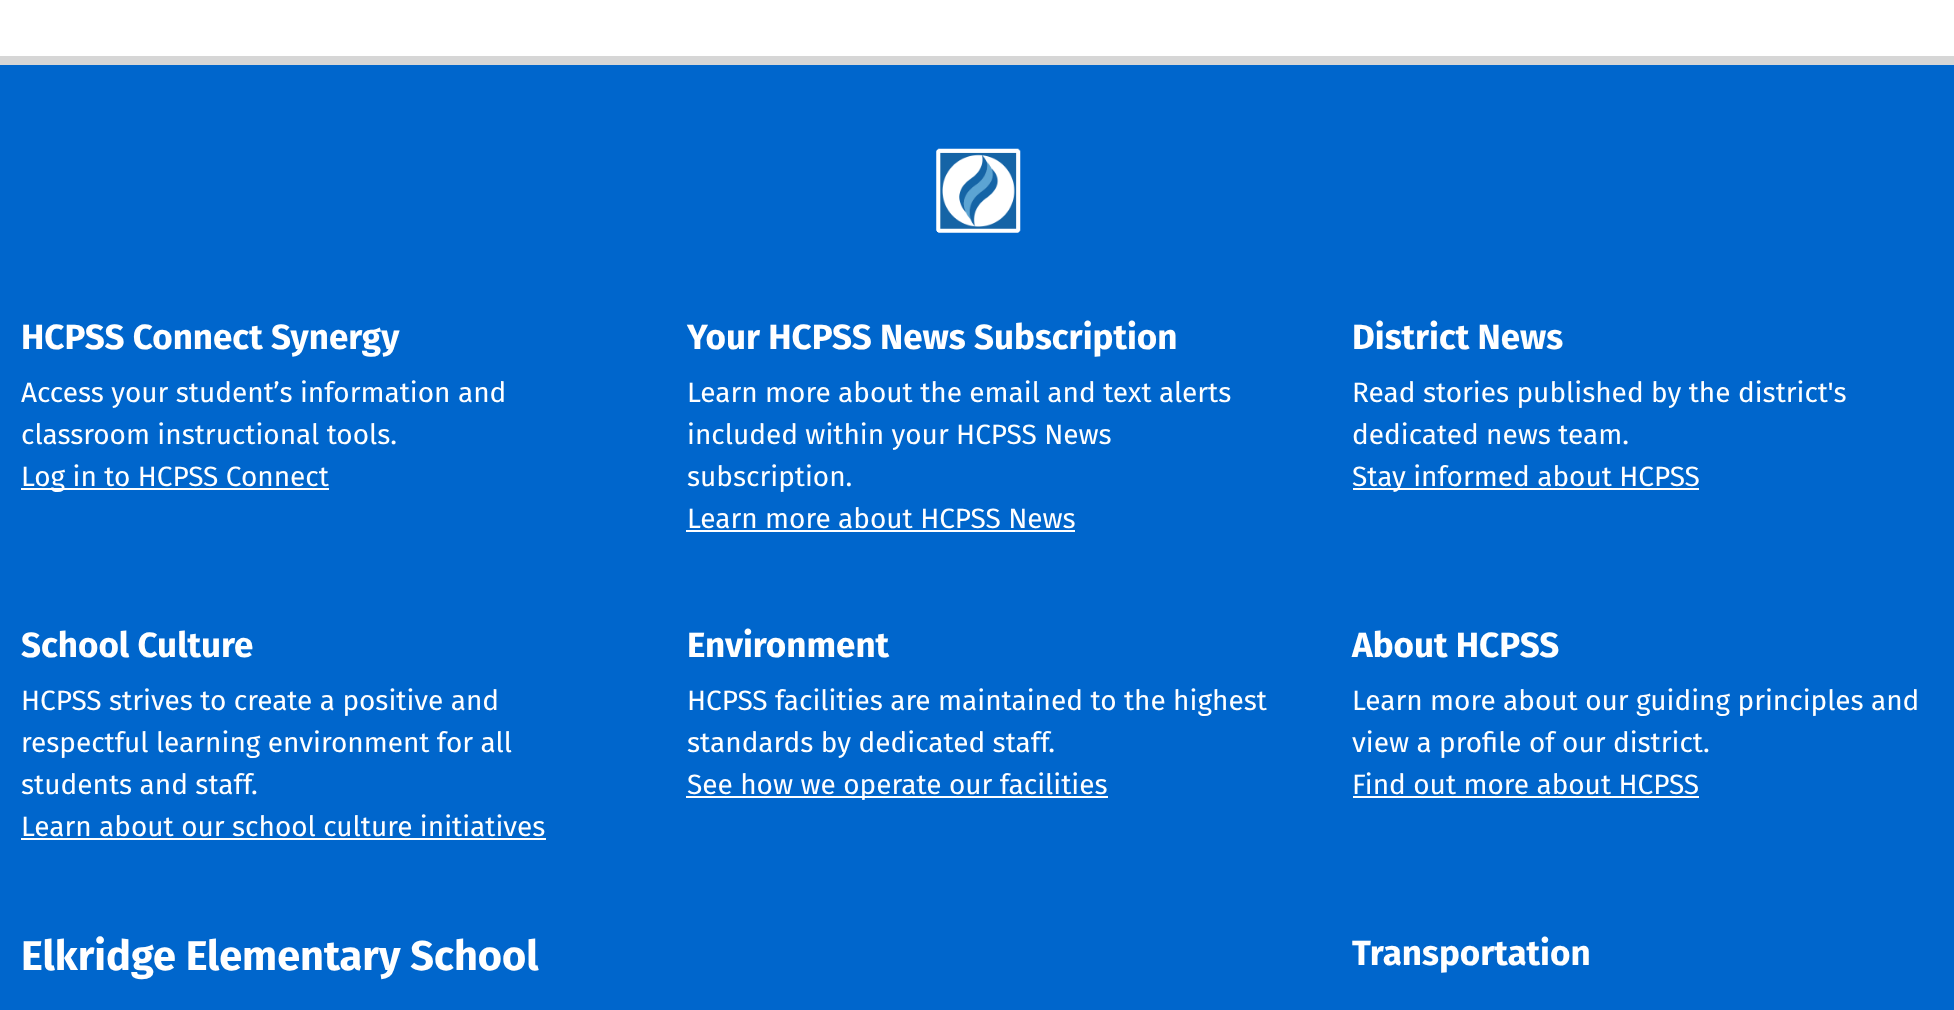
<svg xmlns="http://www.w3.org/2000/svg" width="1954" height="1010">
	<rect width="100%" height="100%" fill="#FFFFFF" />
	<rect x="0" y="65" width="1954" height="945" fill="#0066CC" />
	<rect x="0" y="56" width="1954" height="9" fill="#D6D6D6" />
	<image x="936" y="148" width="85" height="85" href="assets/img1.png" />
	<text x="21" y="349" font-family="Fira Sans" font-size="35" font-weight="700" fill="#FFFFFF">HCPSS Connect Synergy</text>
	<g font-family="Fira Sans" font-size="28" fill="#FFFFFF">
		<text x="21" y="402">Access your student’s information and</text>
		<text x="21" y="444">classroom instructional tools.</text>
	</g>
	<rect x="21" y="488" width="308" height="2" fill="#FFFFFF" />
	<text x="21" y="486" font-family="Fira Sans" font-size="28" fill="#FFFFFF">Log in to HCPSS Connect</text>
	<text x="687" y="349" font-family="Fira Sans" font-size="35" font-weight="700" fill="#FFFFFF">Your HCPSS News Subscription</text>
	<g font-family="Fira Sans" font-size="28" fill="#FFFFFF">
		<text x="687" y="402">Learn more about the email and text alerts</text>
		<text x="687" y="444">included within your HCPSS News</text>
		<text x="687" y="486">subscription.</text>
		<text x="687" y="528">Learn more about HCPSS News</text>
	</g>
	<rect x="686" y="530" width="389" height="2" fill="#FFFFFF" />
	<text x="1352" y="349" font-family="Fira Sans" font-size="35" font-weight="700" fill="#FFFFFF">District News</text>
	<g font-family="Fira Sans" font-size="28" fill="#FFFFFF">
		<text x="1352" y="402">Read stories published by the district's</text>
		<text x="1352" y="444">dedicated news team.</text>
	</g>
	<rect x="1353" y="488" width="346" height="2" fill="#FFFFFF" />
	<text x="1352" y="486" font-family="Fira Sans" font-size="28" fill="#FFFFFF">Stay informed about HCPSS</text>
	<text x="21" y="657" font-family="Fira Sans" font-size="35" font-weight="700" fill="#FFFFFF">School Culture</text>
	<g font-family="Fira Sans" font-size="28" fill="#FFFFFF">
		<text x="21" y="710">HCPSS strives to create a positive and</text>
		<text x="21" y="752">respectful learning environment for all</text>
		<text x="21" y="794">students and staff.</text>
		<text x="21" y="836">Learn about our school culture initiatives</text>
	</g>
	<rect x="21" y="838" width="525" height="2" fill="#FFFFFF" />
	<text x="687" y="657" font-family="Fira Sans" font-size="35" font-weight="700" fill="#FFFFFF">Environment</text>
	<g font-family="Fira Sans" font-size="28" fill="#FFFFFF">
		<text x="687" y="710">HCPSS facilities are maintained to the highest</text>
		<text x="687" y="752">standards by dedicated staff.</text>
	</g>
	<rect x="686" y="796" width="422" height="2" fill="#FFFFFF" />
	<text x="687" y="794" font-family="Fira Sans" font-size="28" fill="#FFFFFF">See how we operate our facilities</text>
	<text x="1352" y="657" font-family="Fira Sans" font-size="35" font-weight="700" fill="#FFFFFF">About HCPSS</text>
	<g font-family="Fira Sans" font-size="28" fill="#FFFFFF">
		<text x="1352" y="710">Learn more about our guiding principles and</text>
		<text x="1352" y="752">view a profile of our district.</text>
		<text x="1352" y="794">Find out more about HCPSS</text>
	</g>
	<rect x="1353" y="796" width="346" height="2" fill="#FFFFFF" />
	<text x="21" y="970" font-family="Fira Sans" font-size="41.5" font-weight="700" fill="#FFFFFF">Elkridge Elementary School</text>
	<text x="1352" y="965" font-family="Fira Sans" font-size="35" font-weight="700" fill="#FFFFFF">Transportation</text>
</svg>
